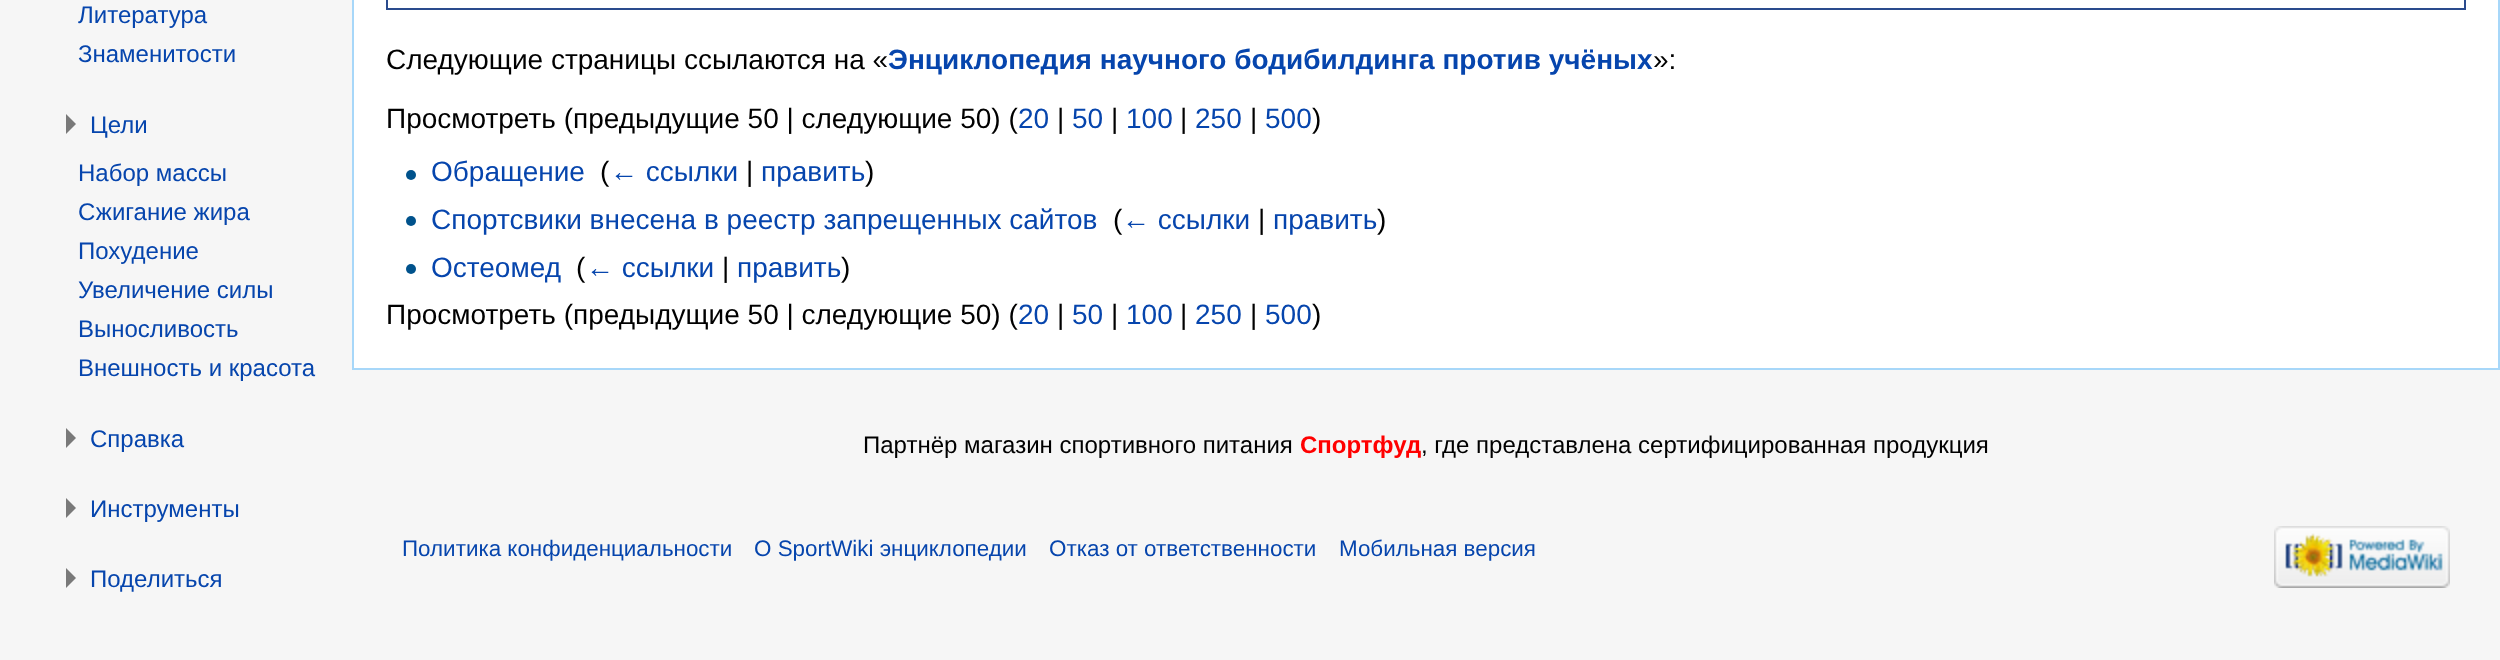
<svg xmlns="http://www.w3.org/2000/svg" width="2500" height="660">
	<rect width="100%" height="100%" fill="#F6F6F6" />
	<g font-family="Liberation Sans" font-size="24" fill="#0645AD">
		<text x="78" y="23">Литература</text>
		<text x="78" y="62">Знаменитости</text>
	</g>
	<path d="M66 114L76 124L66 134Z" fill="#797979" />
	<g font-family="Liberation Sans" font-size="24" fill="#0645AD">
		<text x="90" y="133">Цели</text>
		<text x="78" y="181">Набор массы</text>
		<text x="78" y="220">Сжигание жира</text>
		<text x="78" y="259">Похудение</text>
		<text x="78" y="298">Увеличение силы</text>
		<text x="78" y="337">Выносливость</text>
		<text x="78" y="376">Внешность и красота</text>
	</g>
	<path d="M66 428L76 438L66 448Z" fill="#797979" />
	<text x="90" y="447" font-family="Liberation Sans" font-size="24" fill="#0645AD">Справка</text>
	<path d="M66 498L76 508L66 518Z" fill="#797979" />
	<text x="90" y="517" font-family="Liberation Sans" font-size="24" fill="#0645AD">Инструменты</text>
	<path d="M66 568L76 578L66 588Z" fill="#797979" />
	<text x="90" y="587" font-family="Liberation Sans" font-size="24" fill="#0645AD">Поделиться</text>
	<rect x="354" y="0" width="2144" height="368" fill="#FFFFFF" />
	<rect x="2498" y="0" width="2" height="370" fill="#A7D7F9" />
	<rect x="352" y="368" width="2148" height="2" fill="#A7D7F9" />
	<rect x="352" y="0" width="2" height="370" fill="#A7D7F9" />
	<rect x="387" y="-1" width="2078" height="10" fill="none" stroke="#2A4B8D" stroke-width="2" />
	<text x="386" y="69" font-family="Liberation Sans" font-size="28" fill="#000000">Следующие страницы ссылаются на «</text>
	<text x="888" y="69" font-family="Liberation Sans" font-size="28" font-weight="700" fill="#0645AD">Энциклопедия научного бодибилдинга против учёных</text>
	<g font-family="Liberation Sans" font-size="28" fill="#000000">
		<text x="1653" y="69">»:</text>
		<text x="386" y="128">Просмотреть (предыдущие 50 | следующие 50) (</text>
	</g>
	<text x="1018" y="128" font-family="Liberation Sans" font-size="28" fill="#0645AD">20</text>
	<text x="1057" y="128" font-family="Liberation Sans" font-size="28" fill="#000000">|</text>
	<text x="1072" y="128" font-family="Liberation Sans" font-size="28" fill="#0645AD">50</text>
	<text x="1111" y="128" font-family="Liberation Sans" font-size="28" fill="#000000">|</text>
	<text x="1126" y="128" font-family="Liberation Sans" font-size="28" fill="#0645AD">100</text>
	<text x="1180" y="128" font-family="Liberation Sans" font-size="28" fill="#000000">|</text>
	<text x="1195" y="128" font-family="Liberation Sans" font-size="28" fill="#0645AD">250</text>
	<text x="1250" y="128" font-family="Liberation Sans" font-size="28" fill="#000000">|</text>
	<text x="1265" y="128" font-family="Liberation Sans" font-size="28" fill="#0645AD">500</text>
	<text x="1312" y="128" font-family="Liberation Sans" font-size="28" fill="#000000">)</text>
	<image x="406" y="170" width="10" height="10" href="assets/img1.png" />
	<text x="431" y="181" font-family="Liberation Sans" font-size="28" fill="#0645AD">Обращение</text>
	<text x="600" y="181" font-family="Liberation Sans" font-size="28" fill="#000000">(</text>
	<text x="610" y="181" font-family="Liberation Sans" font-size="28" fill="#0645AD">← ссылки</text>
	<text x="746" y="181" font-family="Liberation Sans" font-size="28" fill="#000000">|</text>
	<text x="761" y="181" font-family="Liberation Sans" font-size="28" fill="#0645AD">править</text>
	<text x="865" y="181" font-family="Liberation Sans" font-size="28" fill="#000000">)</text>
	<image x="406" y="216" width="10" height="10" href="assets/img1.png" />
	<text x="431" y="229" font-family="Liberation Sans" font-size="28" fill="#0645AD">Спортсвики внесена в реестр запрещенных сайтов</text>
	<text x="1113" y="229" font-family="Liberation Sans" font-size="28" fill="#000000">(</text>
	<text x="1122" y="229" font-family="Liberation Sans" font-size="28" fill="#0645AD">← ссылки</text>
	<text x="1258" y="229" font-family="Liberation Sans" font-size="28" fill="#000000">|</text>
	<text x="1273" y="229" font-family="Liberation Sans" font-size="28" fill="#0645AD">править</text>
	<text x="1377" y="229" font-family="Liberation Sans" font-size="28" fill="#000000">)</text>
	<image x="406" y="264" width="10" height="10" href="assets/img1.png" />
	<text x="431" y="277" font-family="Liberation Sans" font-size="28" fill="#0645AD">Остеомед</text>
	<text x="576" y="277" font-family="Liberation Sans" font-size="28" fill="#000000">(</text>
	<text x="586" y="277" font-family="Liberation Sans" font-size="28" fill="#0645AD">← ссылки</text>
	<text x="722" y="277" font-family="Liberation Sans" font-size="28" fill="#000000">|</text>
	<text x="737" y="277" font-family="Liberation Sans" font-size="28" fill="#0645AD">править</text>
	<g font-family="Liberation Sans" font-size="28" fill="#000000">
		<text x="841" y="277">)</text>
		<text x="386" y="324">Просмотреть (предыдущие 50 | следующие 50) (</text>
	</g>
	<text x="1018" y="324" font-family="Liberation Sans" font-size="28" fill="#0645AD">20</text>
	<text x="1057" y="324" font-family="Liberation Sans" font-size="28" fill="#000000">|</text>
	<text x="1072" y="324" font-family="Liberation Sans" font-size="28" fill="#0645AD">50</text>
	<text x="1111" y="324" font-family="Liberation Sans" font-size="28" fill="#000000">|</text>
	<text x="1126" y="324" font-family="Liberation Sans" font-size="28" fill="#0645AD">100</text>
	<text x="1180" y="324" font-family="Liberation Sans" font-size="28" fill="#000000">|</text>
	<text x="1195" y="324" font-family="Liberation Sans" font-size="28" fill="#0645AD">250</text>
	<text x="1250" y="324" font-family="Liberation Sans" font-size="28" fill="#000000">|</text>
	<text x="1265" y="324" font-family="Liberation Sans" font-size="28" fill="#0645AD">500</text>
	<text x="1312" y="324" font-family="Liberation Sans" font-size="28" fill="#000000">)</text>
	<text x="863" y="453" font-family="Liberation Sans" font-size="24" fill="#000000">Партнёр магазин спортивного питания</text>
	<text x="1300" y="453" font-family="Liberation Sans" font-size="24" font-weight="700" fill="#FF0000">Спортфуд</text>
	<text x="1421" y="453" font-family="Liberation Sans" font-size="24" fill="#000000">, где представлена сертифицированная продукция</text>
	<g font-family="Liberation Sans" font-size="22.4" fill="#0645AD">
		<text x="402" y="556">Политика конфиденциальности</text>
		<text x="754" y="556">О SportWiki энциклопедии</text>
		<text x="1049" y="556">Отказ от ответственности</text>
		<text x="1339" y="556">Мобильная версия</text>
	</g>
	<image x="2274" y="526" width="176" height="62" href="assets/img2.png" />
</svg>
